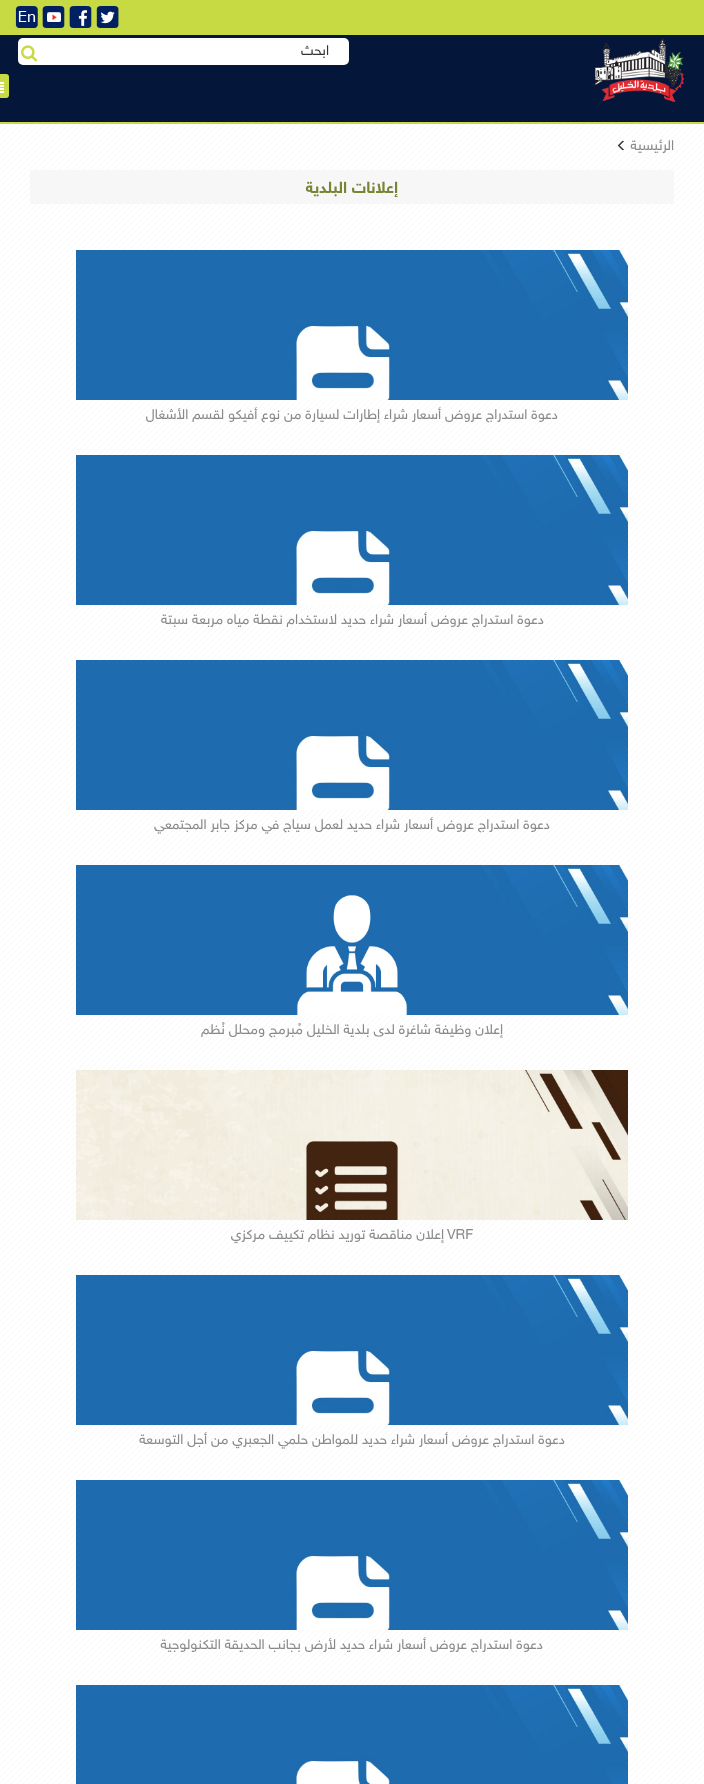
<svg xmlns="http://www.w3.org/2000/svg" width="704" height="1784">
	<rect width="100%" height="100%" fill="#FFFFFF" />
	<image x="0" y="124" width="704" height="1660" href="assets/img1.png" />
	<rect x="0" y="35" width="704" height="87" fill="#04163A" />
	<rect x="0" y="122" width="704" height="2" fill="#C7DA43" />
	<rect x="0" y="0" width="704" height="35" fill="#C7DA43" />
	<image x="96" y="6" width="23" height="22" href="assets/img2.png" />
	<image x="69" y="6" width="23" height="22" href="assets/img3.png" />
	<image x="42" y="6" width="23" height="22" href="assets/img4.png" />
	<image x="15" y="6" width="23" height="22" href="assets/img5.png" />
	<image x="594" y="38" width="90" height="64" href="assets/img6.png" />
	<rect x="18" y="38" width="331" height="27" rx="5" fill="#FFFFFF" />
	<text x="329" y="55" font-family="'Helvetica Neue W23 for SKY'" font-size="14" direction="rtl" fill="#333333">ابحث</text>
	<image x="21" y="45" width="17" height="17" href="assets/img7.png" />
	<rect x="-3" y="74" width="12" height="24" rx="3" fill="#C7DA43" />
	<image x="0" y="81" width="5" height="12" href="assets/img8.png" />
	<text x="674" y="150" font-family="'Helvetica Neue W23 for SKY'" font-size="14" direction="rtl" fill="#898989">الرئيسية</text>
	<image x="617" y="140" width="7" height="11" href="assets/img9.png" />
	<rect x="30" y="170" width="644" height="34" fill="#F7F7F7" />
	<text x="398" y="193" font-family="'Helvetica Neue W23 for SKY'" font-size="16" font-weight="700" direction="rtl" fill="#7A8434">إعلانات البلدية</text>
	<image x="76" y="250" width="552" height="150" href="assets/img10.png" />
	<text x="558" y="419" font-family="'Helvetica Neue W23 for SKY'" font-size="14" direction="rtl" fill="#898989">دعوة استدراج عروض أسعار شراء إطارات لسيارة من نوع أفيكو لقسم الأشغال</text>
	<image x="76" y="455" width="552" height="150" href="assets/img10.png" />
	<text x="544" y="624" font-family="'Helvetica Neue W23 for SKY'" font-size="14" direction="rtl" fill="#898989">دعوة استدراج عروض أسعار شراء حديد لاستخدام نقطة مياه مربعة سبتة</text>
	<image x="76" y="660" width="552" height="150" href="assets/img10.png" />
	<text x="550" y="829" font-family="'Helvetica Neue W23 for SKY'" font-size="14" direction="rtl" fill="#898989">دعوة استدراج عروض أسعار شراء حديد لعمل سياج في مركز جابر المجتمعي</text>
	<image x="76" y="865" width="552" height="150" href="assets/img11.png" />
	<text x="503" y="1034" font-family="'Helvetica Neue W23 for SKY'" font-size="14" direction="rtl" fill="#898989">إعلان وظيفة شاغرة لدى بلدية الخليل مُبرمج ومحلل نُظم</text>
	<image x="76" y="1070" width="552" height="150" href="assets/img12.png" />
	<text x="447" y="1239" font-family="'Helvetica Neue W23 for SKY'" font-size="14" fill="#898989">VRF</text>
	<text x="444" y="1239" font-family="'Helvetica Neue W23 for SKY'" font-size="14" direction="rtl" fill="#898989">إعلان مناقصة توريد نظام تكييف مركزي</text>
	<image x="76" y="1275" width="552" height="150" href="assets/img10.png" />
	<text x="565" y="1444" font-family="'Helvetica Neue W23 for SKY'" font-size="14" direction="rtl" fill="#898989">دعوة استدراج عروض أسعار شراء حديد للمواطن حلمي الجعبري من أجل التوسعة</text>
	<image x="76" y="1480" width="552" height="150" href="assets/img10.png" />
	<text x="543" y="1649" font-family="'Helvetica Neue W23 for SKY'" font-size="14" direction="rtl" fill="#898989">دعوة استدراج عروض أسعار شراء حديد لأرض بجانب الحديقة التكنولوجية</text>
	<image x="76" y="1685" width="552" height="99" href="assets/img13.png" />
</svg>
